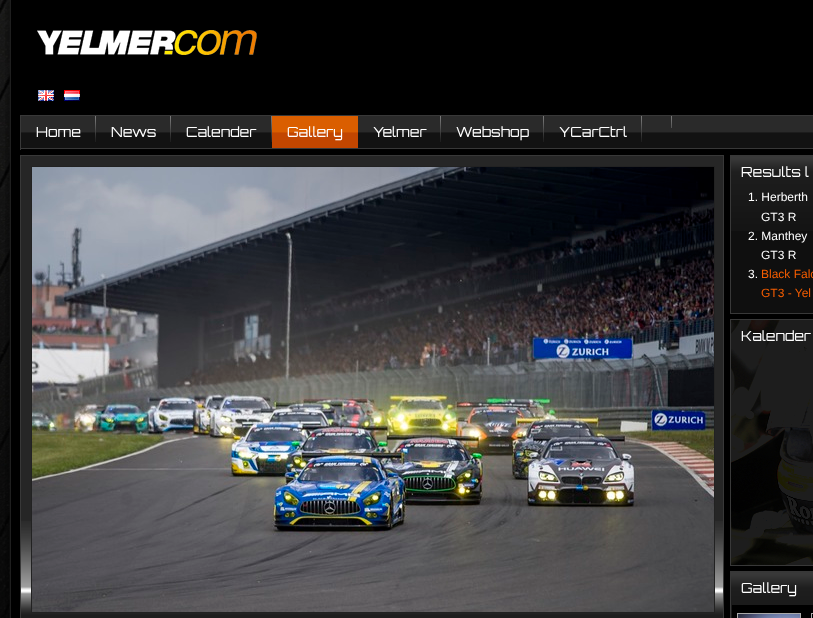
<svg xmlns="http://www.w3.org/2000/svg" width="813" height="618">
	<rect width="100%" height="100%" fill="#FFFFFF" />
	<image x="0" y="0" width="10" height="618" href="assets/img1.png" />
	<image x="5" y="0" width="808" height="618" href="assets/img2.png" />
	<image x="37" y="30" width="220" height="25" href="assets/img3.png" />
	<image x="38" y="90" width="16" height="11" href="assets/img4.png" />
	<image x="64" y="90" width="16" height="11" href="assets/img5.png" />
	<image x="21" y="115" width="792" height="34" href="assets/img6.png" />
	<rect x="20" y="115" width="1" height="35" fill="#383838" />
	<image x="671" y="116" width="1" height="12" href="assets/img7.png" />
	<image x="95" y="116" width="1" height="26" href="assets/img8.png" />
	<text x="36" y="137" font-family="Orbitron" font-size="14" fill="#FFFFFF">Home</text>
	<image x="170" y="116" width="1" height="26" href="assets/img8.png" />
	<text x="111" y="137" font-family="Orbitron" font-size="14" fill="#FFFFFF">News</text>
	<image x="271" y="116" width="1" height="26" href="assets/img8.png" />
	<text x="186" y="137" font-family="Orbitron" font-size="14" fill="#FFFFFF">Calender</text>
	<image x="272" y="116" width="86" height="32" href="assets/img9.png" />
	<text x="287" y="137" font-family="Orbitron" font-size="14" fill="#FFFFFF">Gallery</text>
	<image x="440" y="116" width="1" height="26" href="assets/img8.png" />
	<text x="373" y="137" font-family="Orbitron" font-size="14" fill="#FFFFFF">Yelmer</text>
	<image x="543" y="116" width="1" height="26" href="assets/img8.png" />
	<text x="456" y="137" font-family="Orbitron" font-size="14" fill="#FFFFFF">Webshop</text>
	<image x="641" y="116" width="1" height="26" href="assets/img8.png" />
	<text x="559" y="137" font-family="Orbitron" font-size="14" fill="#FFFFFF">YCarCtrl</text>
	<rect x="21" y="156" width="702" height="365" fill="#262626" />
	<image x="21" y="521" width="702" height="97" href="assets/img10.png" />
	<rect x="20.5" y="155.5" width="703" height="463" fill="none" stroke="#383838" />
	<rect x="31.5" y="166.5" width="683" height="446" fill="none" stroke="#222222" />
	<image x="32" y="167" width="682" height="445" href="assets/img11.png" />
	<rect x="731" y="231" width="82" height="82" fill="#0F0F0F" />
	<image x="731" y="156" width="82" height="75" href="assets/img12.png" />
	<rect x="730.5" y="155.5" width="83" height="158" fill="none" stroke="#383838" />
	<text x="741" y="177" font-family="Orbitron" font-size="14" fill="#FFFFFF">Results l</text>
	<g font-family="Liberation Sans" font-size="12" fill="#FFFFFF">
		<text x="748" y="201">1. Herberth</text>
		<text x="761" y="221">GT3 R</text>
		<text x="748" y="240">2. Manthey</text>
		<text x="761" y="259">GT3 R</text>
		<text x="748" y="278">3.</text>
	</g>
	<g font-family="Liberation Sans" font-size="12" fill="#F65D00">
		<text x="761" y="278">Black Falc</text>
		<text x="761" y="297">GT3 - Yel</text>
	</g>
	<image x="731" y="320" width="82" height="245" href="assets/img13.png" />
	<rect x="730.5" y="319.5" width="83" height="246" fill="none" stroke="#383838" />
	<text x="741" y="341" font-family="Orbitron" font-size="14" fill="#FFFFFF">Kalender</text>
	<image x="731" y="572" width="82" height="46" href="assets/img14.png" />
	<rect x="730.5" y="571.5" width="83" height="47" fill="none" stroke="#383838" />
	<text x="741" y="593" font-family="Orbitron" font-size="14" fill="#FFFFFF">Gallery</text>
	<rect x="732" y="605" width="81" height="13" fill="#000000" />
	<rect x="737.5" y="613.5" width="63" height="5" fill="none" stroke="#AAAAAA" />
	<image x="738" y="614" width="62" height="4" href="assets/img15.png" />
	<rect x="811.5" y="613.5" width="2" height="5" fill="none" stroke="#AAAAAA" />
</svg>
